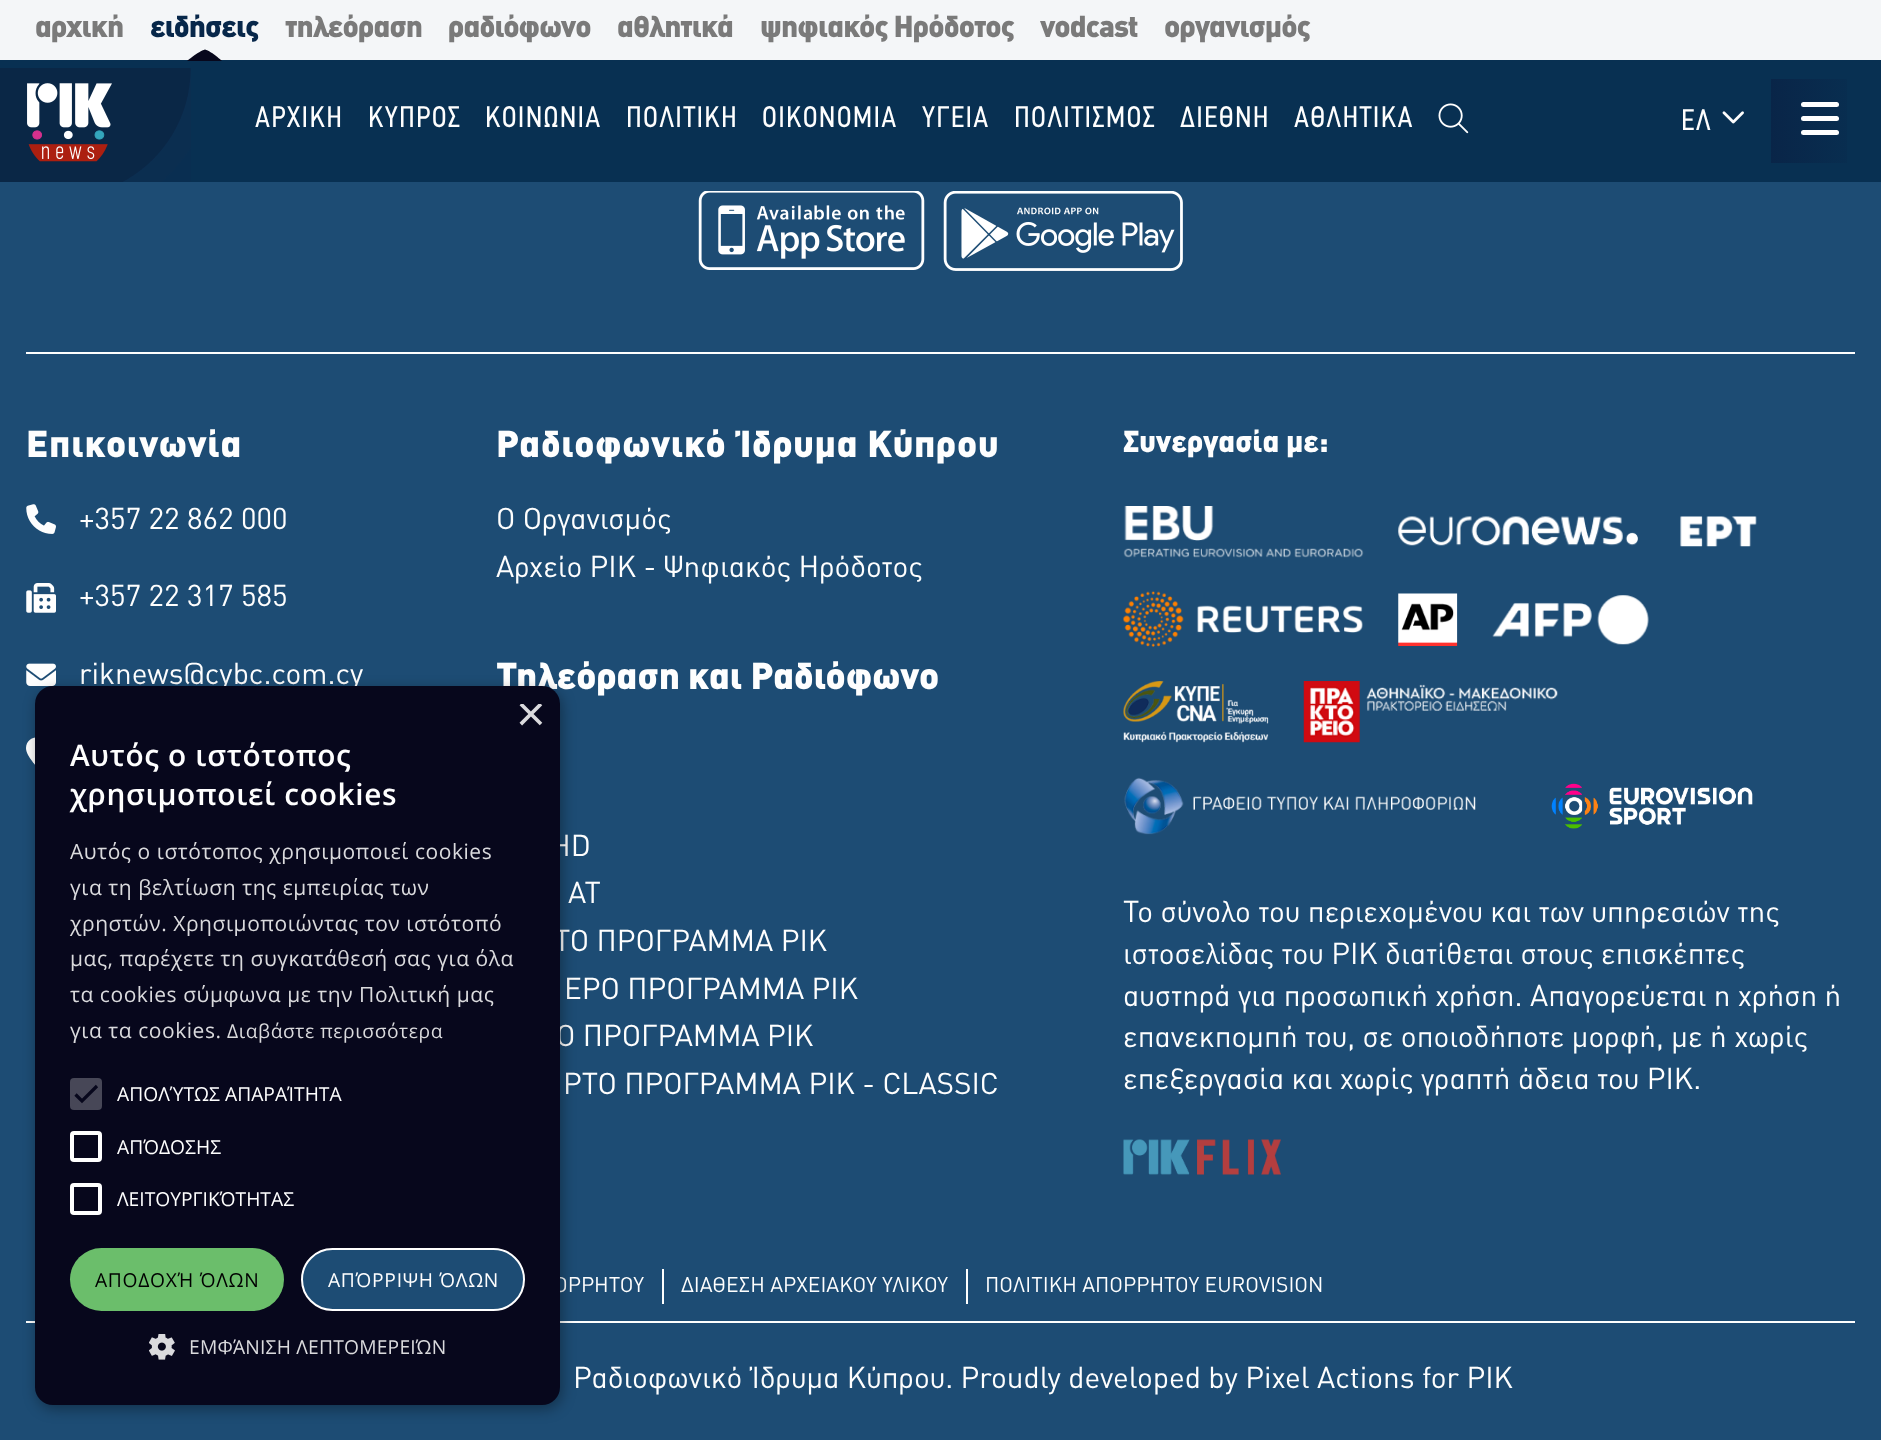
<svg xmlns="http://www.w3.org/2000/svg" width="1881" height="1440">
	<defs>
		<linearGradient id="g1" gradientUnits="userSpaceOnUse" x1="1869" y1="120" x2="1771" y2="120"><stop offset="0" stop-color="#083052" /><stop offset="1" stop-color="#092548" /></linearGradient>
		<clipPath id="clip1"><rect x="516" y="704" width="27" height="26" /></clipPath>
	</defs>
	<rect width="100%" height="100%" fill="#1D4C74" />
	<rect x="0" y="60" width="1881" height="122" fill="#083052" />
	<rect x="0" y="0" width="1881" height="60" fill="#F4F6F8" />
	<text x="35" y="37" font-family="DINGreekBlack" font-size="29.75" font-weight="900" letter-spacing="-0.9" fill="#7A7A7A">αρχική</text>
	<text x="150" y="37" font-family="DINGreekBlack" font-size="29.75" font-weight="900" letter-spacing="-0.9" fill="#07274A">ειδήσεις</text>
	<path d="M205 49.5C198 51.5 187 61 187 61H222C222 61 212 51.5 205 49.5Z" fill="#07071C" />
	<g font-family="DINGreekBlack" font-size="29.75" font-weight="900" letter-spacing="-0.9" fill="#7A7A7A">
		<text x="285" y="37">τηλεόραση</text>
		<text x="448" y="37">ραδιόφωνο</text>
		<text x="617" y="37">αθλητικά</text>
		<text x="760" y="37">ψηφιακός Ηρόδοτος</text>
		<text x="1040" y="37">vodcast</text>
		<text x="1164" y="37">οργανισμός</text>
	</g>
	<image x="0" y="68" width="191" height="114" href="assets/img1.png" />
	<image x="27" y="83" width="85" height="79" href="assets/img2.png" />
	<g font-family="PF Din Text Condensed" font-size="29.75" letter-spacing="1.25" fill="#FEFEFE">
		<text x="255" y="127">ΑΡΧΙΚΗ</text>
		<text x="368" y="127">ΚΥΠΡΟΣ</text>
		<text x="485" y="127">ΚΟΙΝΩΝΙΑ</text>
		<text x="626" y="127">ΠΟΛΙΤΙΚΗ</text>
		<text x="762" y="127">ΟΙΚΟΝΟΜΙΑ</text>
		<text x="922" y="127">ΥΓΕΙΑ</text>
		<text x="1014" y="127">ΠΟΛΙΤΙΣΜΟΣ</text>
		<text x="1180" y="127">ΔΙΕΘΝΗ</text>
		<text x="1294" y="127">ΑΘΛΗΤΙΚΑ</text>
	</g>
	<image x="1438" y="103" width="31" height="31" href="assets/img3.png" />
	<text x="1681" y="130" font-family="PF Din Text Condensed" font-size="29.75" letter-spacing="1.25" fill="#FEFEFE">ΕΛ</text>
	<image x="1722" y="111" width="22" height="13" href="assets/img4.png" />
	<rect x="1771" y="79" width="76" height="84" fill="url(#g1)" />
	<rect x="1801" y="102" width="38" height="5" rx="2.5" fill="#FFFFFF" />
	<rect x="1801" y="116" width="38" height="5" rx="2.5" fill="#FFFFFF" />
	<rect x="1801" y="130" width="38" height="5" rx="2.5" fill="#FFFFFF" />
	<image x="698" y="191" width="227" height="79" href="assets/img5.png" />
	<image x="943" y="191" width="240" height="80" href="assets/img6.png" />
	<rect x="26" y="352" width="1829" height="2" fill="#FEFEFE" />
	<rect x="26" y="1321" width="1829" height="2" fill="#FEFEFE" />
	<text x="26" y="457" font-family="DINGreekBlack" font-size="36.75" font-weight="900" letter-spacing="0.7" fill="#FEFEFE">Επικοινωνία</text>
	<image x="26" y="504" width="30" height="30" href="assets/img7.png" />
	<text x="79" y="529" font-family="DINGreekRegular" font-size="29.75" fill="#FEFEFE">+357 22 862 000</text>
	<image x="26" y="583" width="30" height="30" href="assets/img8.png" />
	<text x="79" y="606" font-family="DINGreekRegular" font-size="29.75" fill="#FEFEFE">+357 22 317 585</text>
	<image x="26" y="663" width="30" height="23" href="assets/img9.png" />
	<text x="79" y="684" font-family="DINGreekRegular" font-size="29.75" fill="#FEFEFE">riknews@cybc.com.cy</text>
	<path d="M48.5 748C48.5 752.5 45.5 756.5 43 760C37.5 768.5 38 769 32 761C29.5 757.5 26 752.5 26 748C26.5 733.5 48 733.5 48.5 748Z" fill="#FEFEFE" />
	<text x="496" y="457" font-family="DINGreekBlack" font-size="36.75" font-weight="900" letter-spacing="0.7" fill="#FEFEFE">Ραδιοφωνικό Ίδρυμα Κύπρου</text>
	<g font-family="DINGreekRegular" font-size="29.75" fill="#FEFEFE">
		<text x="496" y="529">Ο Οργανισμός</text>
		<text x="496" y="577">Αρχείο ΡΙΚ - Ψηφιακός Ηρόδοτος</text>
	</g>
	<text x="496" y="689" font-family="DINGreekBlack" font-size="36.75" font-weight="900" fill="#FEFEFE">Τηλεόραση και Ραδιόφωνο</text>
	<g font-family="DINGreekRegular" font-size="29.75" fill="#FEFEFE">
		<text x="550" y="856">HD</text>
		<text x="568" y="903">AT</text>
		<text x="554" y="951">ΤΟ ΠΡΟΓΡΑΜΜΑ ΡΙΚ</text>
		<text x="564" y="999">ΕΡΟ ΠΡΟΓΡΑΜΜΑ ΡΙΚ</text>
		<text x="556" y="1046">Ο ΠΡΟΓΡΑΜΜΑ ΡΙΚ</text>
		<text x="563" y="1094">ΡΤΟ ΠΡΟΓΡΑΜΜΑ ΡΙΚ - CLASSIC</text>
	</g>
	<text x="1123" y="452" font-family="DINGreekBlack" font-size="29.75" font-weight="900" fill="#FEFEFE">Συνεργασία με:</text>
	<image x="1123" y="506" width="241" height="52" href="assets/img10.png" />
	<image x="1398" y="516" width="240" height="30" href="assets/img11.png" />
	<image x="1680" y="516" width="77" height="31" href="assets/img12.png" />
	<image x="1123" y="591" width="240" height="56" href="assets/img13.png" />
	<image x="1398" y="593" width="60" height="53" href="assets/img14.png" />
	<image x="1492" y="595" width="157" height="50" href="assets/img15.png" />
	<image x="1123" y="681" width="146" height="62" href="assets/img16.png" />
	<image x="1303" y="681" width="255" height="62" href="assets/img17.png" />
	<image x="1124" y="777" width="352" height="58" href="assets/img18.png" />
	<image x="1551" y="783" width="202" height="46" href="assets/img19.png" />
	<g font-family="DINGreekRegular" font-size="29.75" fill="#FEFEFE">
		<text x="1123" y="922">Το σύνολο του περιεχομένου και των υπηρεσιών της</text>
		<text x="1123" y="964">ιστοσελίδας του ΡΙΚ διατίθεται στους επισκέπτες</text>
		<text x="1123" y="1006">αυστηρά για προσωπική χρήση. Απαγορεύεται η χρήση ή</text>
		<text x="1123" y="1047">επανεκπομπή του, σε οποιοδήποτε μορφή, με ή χωρίς</text>
		<text x="1123" y="1089">επεξεργασία και χωρίς γραπτή άδεια του ΡΙΚ.</text>
	</g>
	<image x="1123" y="1139" width="158" height="36" href="assets/img20.png" />
	<rect x="662" y="1269" width="2" height="35" fill="#FEFEFE" />
	<text x="554" y="1292" font-family="DINGreekRegular" font-size="21" fill="#FEFEFE">ΟΡΡΗΤΟΥ</text>
	<rect x="966" y="1269" width="2" height="35" fill="#FEFEFE" />
	<g font-family="DINGreekRegular" font-size="21" fill="#FEFEFE">
		<text x="681" y="1292">ΔΙΑΘΕΣΗ ΑΡΧΕΙΑΚΟΥ ΥΛΙΚΟΥ</text>
		<text x="985" y="1292">ΠΟΛΙΤΙΚΗ ΑΠΟΡΡΗΤΟΥ EUROVISION</text>
	</g>
	<text x="573" y="1388" font-family="DINGreekRegular" font-size="29.75" fill="#FEFEFE">Ραδιοφωνικό Ίδρυμα Κύπρου. Proudly developed by Pixel Actions for ΡΙΚ</text>
	<rect x="37" y="690" width="525" height="719" rx="18" fill="#000000" fill-opacity="0.35" filter="blur(7px)" />
	<rect x="35" y="686" width="525" height="719" rx="18" fill="#07071C" />
	<g clip-path="url(#clip1)">
		<text x="516" y="731" font-family="Liberation Sans" font-size="51" fill="#DADADD">×</text>
	</g>
	<g font-family="Open Sans" font-size="29.75" font-weight="600" letter-spacing="0.7" fill="#FEFEFE">
		<text x="70" y="766">Αυτός ο ιστότοπος</text>
		<text x="70" y="805">χρησιμοποιεί cookies</text>
	</g>
	<g font-family="Open Sans" font-size="21" letter-spacing="0.55" fill="#DADADD">
		<text x="70" y="859">Αυτός ο ιστότοπος χρησιμοποιεί cookies</text>
		<text x="70" y="895">για τη βελτίωση της εμπειρίας των</text>
		<text x="70" y="931">χρηστών. Χρησιμοποιώντας τον ιστότοπό</text>
		<text x="70" y="966">μας, παρέχετε τη συγκατάθεσή σας για όλα</text>
		<text x="70" y="1002">τα cookies σύμφωνα με την Πολιτική μας</text>
		<text x="70" y="1038">για τα cookies.</text>
	</g>
	<text x="227" y="1038" font-family="Open Sans" font-size="19.25" letter-spacing="0.55" fill="#DADADD">Διαβάστε περισσότερα</text>
	<rect x="70" y="1078" width="32" height="32" rx="4" fill="#474757" />
	<path d="M75.5 1094.5L82 1101L97 1086" fill="none" stroke="#07071C" stroke-width="3.2" />
	<text x="117" y="1101" font-family="Open Sans" font-size="19.25" fill="#FEFEFE">ΑΠΟΛΎΤΩΣ ΑΠΑΡΑΊΤΗΤΑ</text>
	<rect x="72" y="1133" width="28" height="27" rx="2" fill="none" stroke="#FFFFFF" stroke-width="4" />
	<text x="117" y="1154" font-family="Open Sans" font-size="19.25" fill="#FEFEFE">ΑΠΌΔΟΣΗΣ</text>
	<rect x="72" y="1185" width="28" height="28" rx="2" fill="none" stroke="#FFFFFF" stroke-width="4" />
	<text x="117" y="1206" font-family="Open Sans" font-size="19.25" fill="#FEFEFE">ΛΕΙΤΟΥΡΓΙΚΌΤΗΤΑΣ</text>
	<rect x="70" y="1248" width="214" height="63" rx="31.5" fill="#6BBE6B" />
	<text x="95" y="1287" font-family="Open Sans" font-size="19.25" letter-spacing="0.7" fill="#000000">ΑΠΟΔΟΧΉ ΌΛΩΝ</text>
	<rect x="302" y="1249" width="222" height="61" rx="30.5" fill="#1D4C74" stroke="#FFFFFF" stroke-width="2" />
	<text x="328" y="1287" font-family="Open Sans" font-size="19.25" letter-spacing="0.7" fill="#FEFEFE">ΑΠΌΡΡΙΨΗ ΌΛΩΝ</text>
	<image x="149" y="1334" width="26" height="26" href="assets/img21.png" />
	<text x="189" y="1354" font-family="Open Sans" font-size="19.25" letter-spacing="0.2" fill="#DADADD">ΕΜΦΆΝΙΣΗ ΛΕΠΤΟΜΕΡΕΙΏΝ</text>
</svg>
